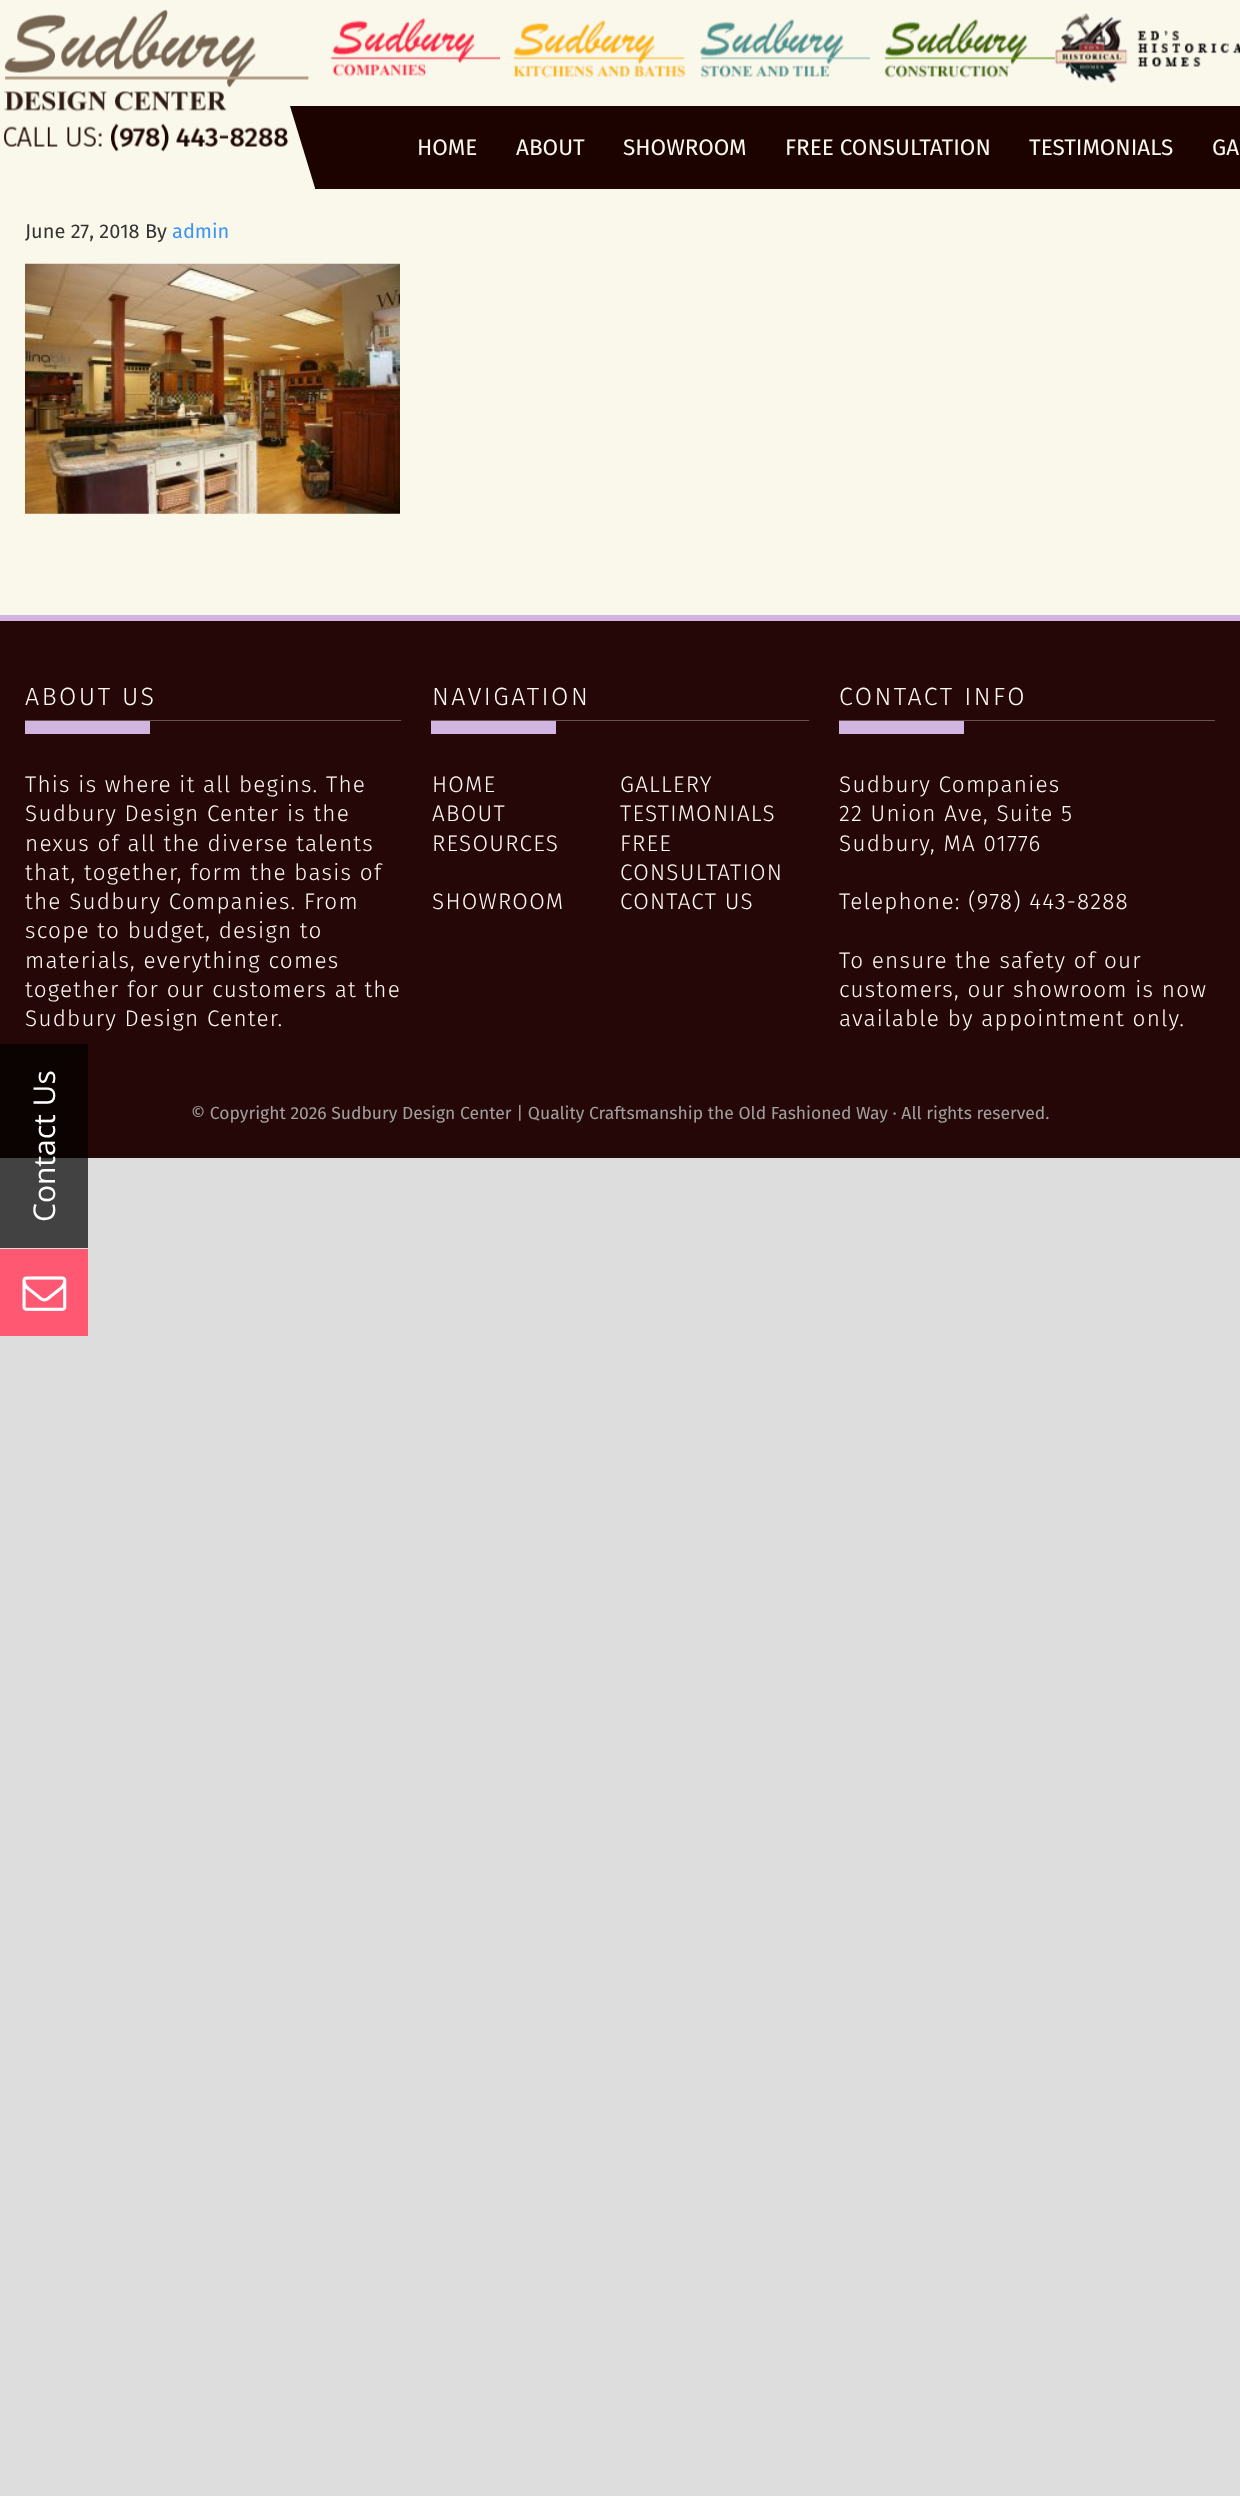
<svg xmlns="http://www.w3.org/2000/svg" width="1240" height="2496">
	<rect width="100%" height="100%" fill="#DDDDDD" />
	<rect x="0" y="1158" width="88" height="90" fill="#424242" />
	<rect x="0" y="0" width="1240" height="615" fill="#FAF8EB" />
	<image x="4" y="9" width="305" height="143" href="assets/img1.png" />
	<image x="331" y="18" width="169" height="59" href="assets/img2.png" />
	<image x="512" y="19" width="173" height="59" href="assets/img3.png" />
	<image x="699" y="19" width="171" height="59" href="assets/img4.png" />
	<image x="884" y="19" width="171" height="59" href="assets/img5.png" />
	<image x="1055" y="13" width="185" height="71" href="assets/img6.png" />
	<rect x="315" y="106" width="925" height="83" fill="#1C0300" />
	<path d="M290 106H315V188Z" fill="#1C0300" />
	<g font-family="Fira Sans" font-size="22.5" fill="#F9F8EB">
		<text x="417" y="155">HOME</text>
		<text x="516" y="155">ABOUT</text>
		<text x="623" y="155">SHOWROOM</text>
		<text x="785" y="155">FREE CONSULTATION</text>
		<text x="1029" y="155">TESTIMONIALS</text>
		<text x="1212" y="155">GA</text>
	</g>
	<text x="25" y="238" font-family="Fira Sans" font-size="20" fill="#333333">June 27, 2018 By</text>
	<text x="172" y="238" font-family="Fira Sans" font-size="20" fill="#3D94F6">admin</text>
	<image x="25" y="263" width="375" height="251" href="assets/img7.png" />
	<rect x="0" y="621" width="1240" height="450" fill="#260707" />
	<rect x="0" y="1044" width="88" height="114" fill="#0B0202" />
	<rect x="0" y="615" width="1240" height="6" fill="#D1B4DF" />
	<text x="25" y="705" font-family="Fira Sans" font-size="25" font-weight="300" letter-spacing="2.5" fill="#FFFAF6">ABOUT US</text>
	<rect x="25" y="720" width="376" height="1" fill="#685252" />
	<rect x="25" y="721" width="125" height="13" fill="#D1B4DF" />
	<g font-family="Fira Sans" font-size="22.5" font-weight="300" letter-spacing="1.25" fill="#FFFAF6">
		<text x="25" y="792">This is where it all begins. The</text>
		<text x="25" y="821">Sudbury Design Center is the</text>
		<text x="25" y="851">nexus of all the diverse talents</text>
		<text x="25" y="880">that, together, form the basis of</text>
		<text x="25" y="909">the Sudbury Companies. From</text>
		<text x="25" y="938">scope to budget, design to</text>
		<text x="25" y="968">materials, everything comes</text>
		<text x="25" y="997">together for our customers at the</text>
		<text x="25" y="1026">Sudbury Design Center.</text>
	</g>
	<text x="432" y="705" font-family="Fira Sans" font-size="25" font-weight="300" letter-spacing="2.5" fill="#FFFAF6">NAVIGATION</text>
	<rect x="431" y="720" width="378" height="1" fill="#685252" />
	<rect x="431" y="721" width="125" height="13" fill="#D1B4DF" />
	<g font-family="Fira Sans" font-size="22.5" font-weight="300" letter-spacing="1.25" fill="#FFFAF6">
		<text x="432" y="792">HOME</text>
		<text x="620" y="792">GALLERY</text>
		<text x="432" y="821">ABOUT</text>
		<text x="620" y="821">TESTIMONIALS</text>
		<text x="432" y="851">RESOURCES</text>
		<text x="620" y="851">FREE</text>
		<text x="620" y="880">CONSULTATION</text>
		<text x="432" y="909">SHOWROOM</text>
		<text x="620" y="909">CONTACT US</text>
	</g>
	<text x="839" y="705" font-family="Fira Sans" font-size="25" font-weight="300" letter-spacing="2.5" fill="#FFFAF6">CONTACT INFO</text>
	<rect x="839" y="720" width="376" height="1" fill="#685252" />
	<rect x="839" y="721" width="125" height="13" fill="#D1B4DF" />
	<g font-family="Fira Sans" font-size="22.5" font-weight="300" letter-spacing="1.25" fill="#FFFAF6">
		<text x="839" y="792">Sudbury Companies</text>
		<text x="839" y="821">22 Union Ave, Suite 5</text>
		<text x="839" y="851">Sudbury</text>
		<text x="930" y="851">, MA 01776</text>
		<text x="839" y="909">Telephone: (978) 443-8288</text>
		<text x="839" y="968">To ensure the safety of our</text>
		<text x="839" y="997">customers, our showroom is now</text>
		<text x="839" y="1026">available by appointment only.</text>
	</g>
	<rect x="88" y="1071" width="1152" height="87" fill="#260707" />
	<text x="191" y="1119" font-family="Fira Sans" font-size="17.5" fill="#A0A09F">© Copyright 2026 Sudbury Design Center | Quality Craftsmanship the Old Fashioned Way · All rights reserved.</text>
	<text x="55" y="1222" transform="rotate(-90 55 1222)" font-family="Open Sans" font-size="30" fill="#FFFFFF">Contact Us</text>
	<rect x="0" y="1249" width="88" height="87" fill="#FF5873" />
	<image x="22" y="1276" width="45" height="35" href="assets/img8.png" />
</svg>
